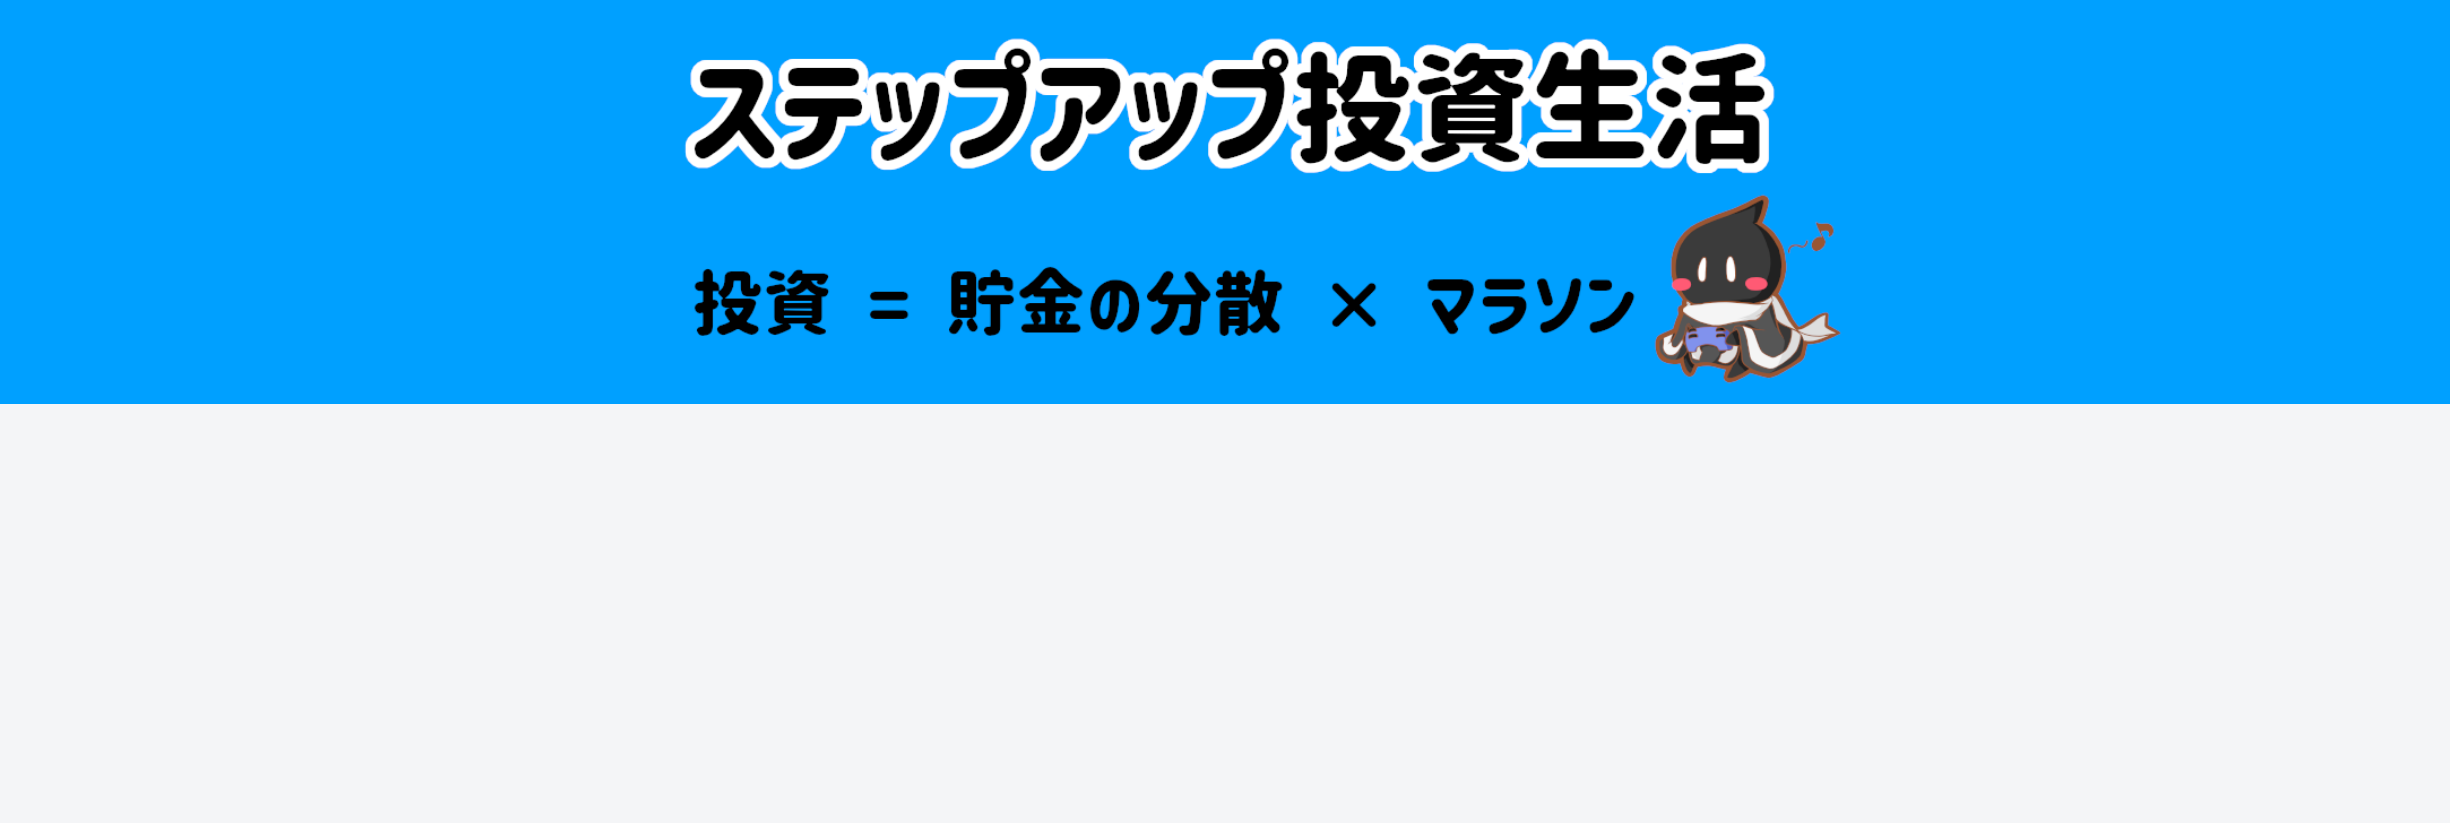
<svg xmlns="http://www.w3.org/2000/svg" width="2450" height="823">
	<rect width="100%" height="100%" fill="#F4F5F7" />
	<rect x="0" y="0" width="2450" height="404" fill="#00A0FF" />
	<image x="684" y="38" width="1158" height="346" href="assets/img1.png" />
</svg>
